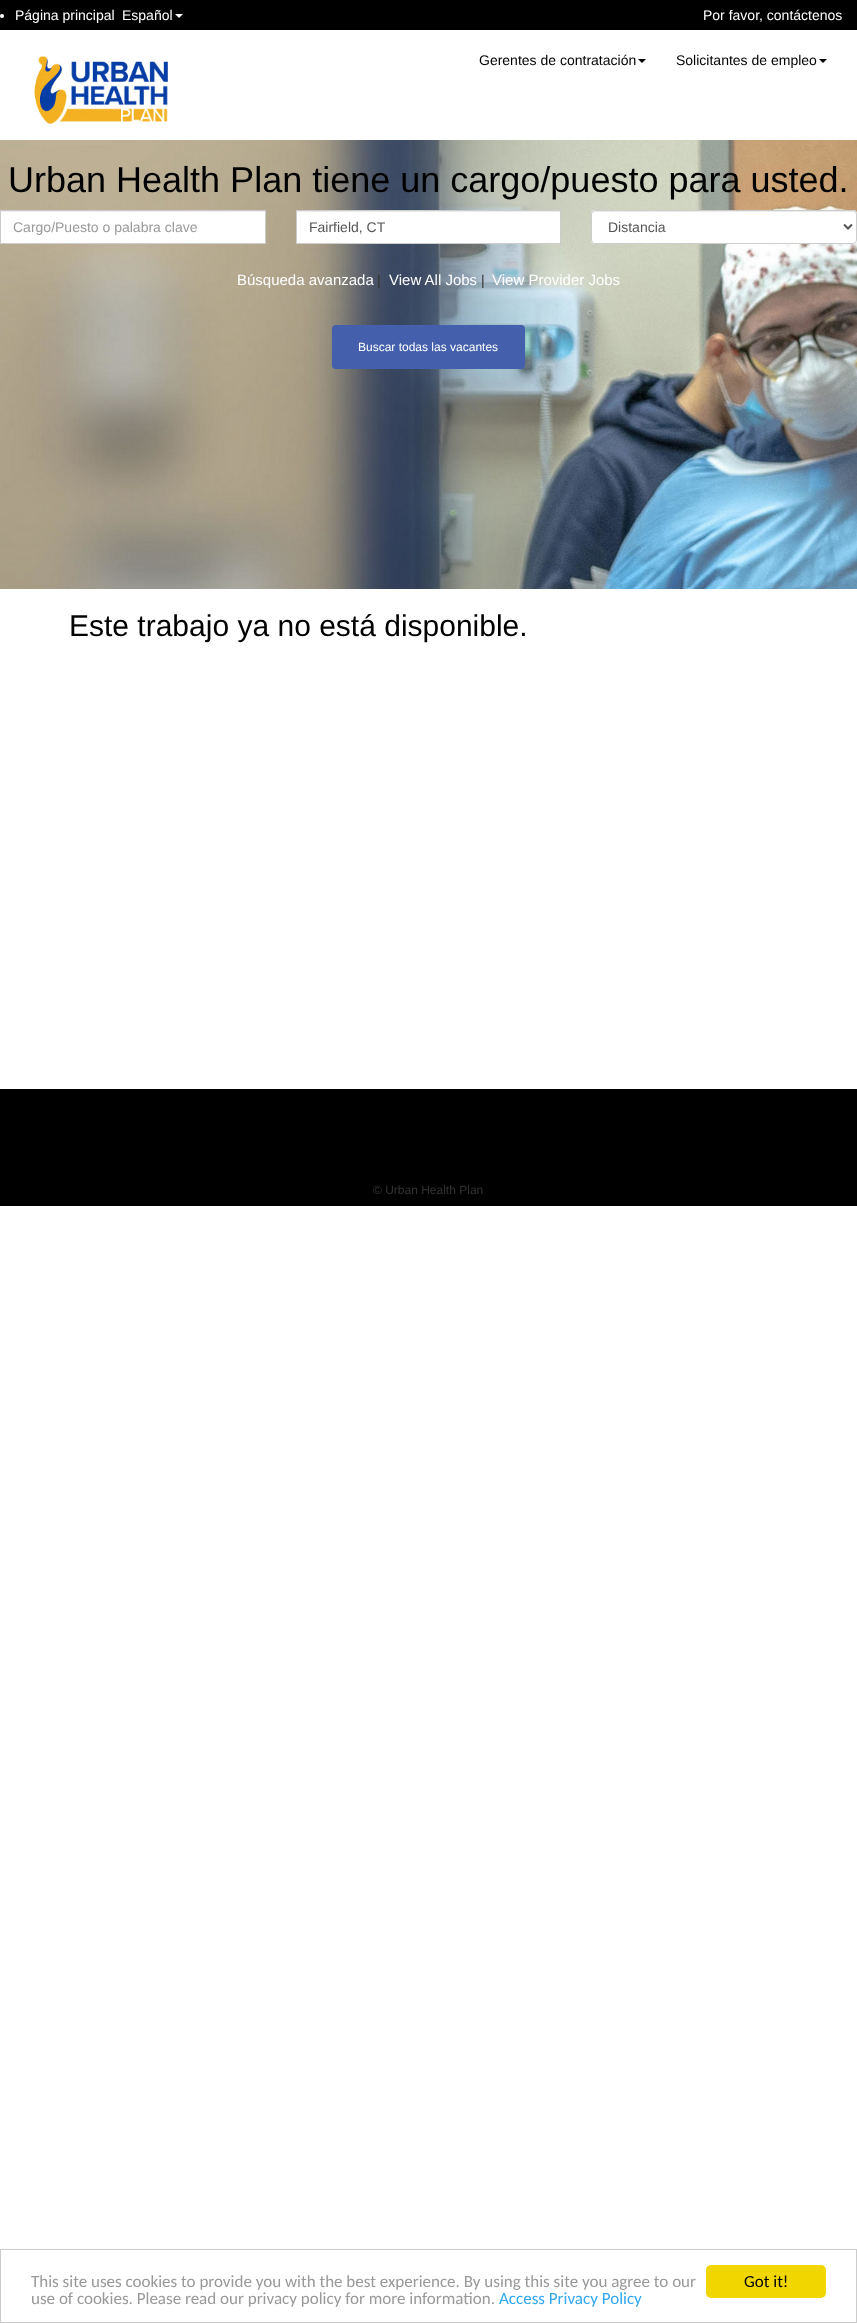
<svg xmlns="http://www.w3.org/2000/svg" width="857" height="2323">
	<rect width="100%" height="100%" fill="#FFFFFF" />
	<rect x="0" y="0" width="857" height="30" fill="#000000" />
	<circle cx="2" cy="16" r="2" fill="#FFFFFF" />
	<g font-family="Liberation Sans" font-size="14" fill="#FFFFFF">
		<text x="15" y="20">Página principal</text>
		<text x="122" y="20">Español</text>
	</g>
	<path d="M175 14H183L179 18Z" fill="#FFFFFF" />
	<text x="703" y="20" font-family="Liberation Sans" font-size="14" fill="#FFFFFF">Por favor, contáctenos</text>
	<image x="34" y="56" width="134" height="68" href="assets/img1.png" />
	<text x="479" y="65" font-family="Liberation Sans" font-size="14" fill="#000000">Gerentes de contratación</text>
	<path d="M638 59H646L642 63Z" fill="#000000" />
	<text x="676" y="65" font-family="Liberation Sans" font-size="14" fill="#000000">Solicitantes de empleo</text>
	<path d="M819 59H827L823 63Z" fill="#000000" />
	<image x="0" y="140" width="857" height="449" href="assets/img2.png" />
	<text x="8" y="192" font-family="Liberation Sans" font-size="36" fill="#000000">Urban Health Plan tiene un cargo/puesto para usted.</text>
	<rect x="1" y="212" width="264" height="31" fill="#FFFFFF" />
	<rect x="1" y="211" width="264" height="1" fill="#ECECEC" />
	<rect x="0.5" y="210.5" width="265" height="33" fill="none" stroke="#CCCCCC" />
	<text x="13" y="232" font-family="Liberation Sans" font-size="14" fill="#999999">Cargo/Puesto o palabra clave</text>
	<rect x="297" y="212" width="263" height="31" fill="#FFFFFF" />
	<rect x="297" y="211" width="263" height="1" fill="#ECECEC" />
	<rect x="296.5" y="210.5" width="264" height="33" fill="none" stroke="#CCCCCC" />
	<text x="309" y="232" font-family="Liberation Sans" font-size="14" fill="#555555">Fairfield, CT</text>
	<rect x="591" y="210" width="266" height="34" rx="4" fill="#FFFFFF" />
	<path d="M595 212H853C855 212 856 213 856 215V214C856 212 855 211 853 211H595C593 211 592 212 592 214V215C592 213 593 212 595 212Z" fill="#ECECEC" />
	<rect x="591.5" y="210.5" width="265" height="33" rx="3.5" fill="none" stroke="#CCCCCC" />
	<path d="M844 224.5L848 228.5L852 224.5" fill="none" stroke="#555555" stroke-width="2" />
	<text x="608" y="232" font-family="Liberation Sans" font-size="14" fill="#555555">Distancia</text>
	<text x="237" y="285" font-family="Liberation Sans" font-size="15" fill="#FFFFFF">Búsqueda avanzada</text>
	<text x="377" y="285" font-family="Liberation Sans" font-size="14" fill="#333333">|</text>
	<text x="389" y="285" font-family="Liberation Sans" font-size="15" fill="#FFFFFF">View All Jobs</text>
	<text x="481" y="285" font-family="Liberation Sans" font-size="14" fill="#333333">|</text>
	<text x="492" y="285" font-family="Liberation Sans" font-size="15" fill="#FFFFFF">View Provider Jobs</text>
	<rect x="332" y="325" width="193" height="44" rx="4" fill="#4460AC" />
	<text x="358" y="351" font-family="Liberation Sans" font-size="12" fill="#FFFFFF">Buscar todas las vacantes</text>
	<text x="69" y="636" font-family="Liberation Sans" font-size="30" fill="#000000">Este trabajo ya no está disponible.</text>
	<rect x="0" y="1089" width="857" height="117" fill="#000000" />
	<text x="373" y="1194" font-family="Liberation Sans" font-size="12" fill="#333333">© Urban Health Plan</text>
	<rect x="0.5" y="2249.5" width="856" height="73" fill="none" stroke="#CCCCCC" />
	<g font-family="Carlito" font-size="17" fill="#999999">
		<text x="31" y="2287">This site uses cookies to provide you with the best experience. By using this site you agree to our</text>
		<text x="31" y="2304">use of cookies. Please read our privacy policy for more information.</text>
	</g>
	<text x="499" y="2304" font-family="Carlito" font-size="17" fill="#31A8F0">Access Privacy Policy</text>
	<rect x="706" y="2265" width="120" height="33" rx="5" fill="#F1D600" />
	<text x="744" y="2287" font-family="Carlito" font-size="17" fill="#000000">Got it!</text>
</svg>
